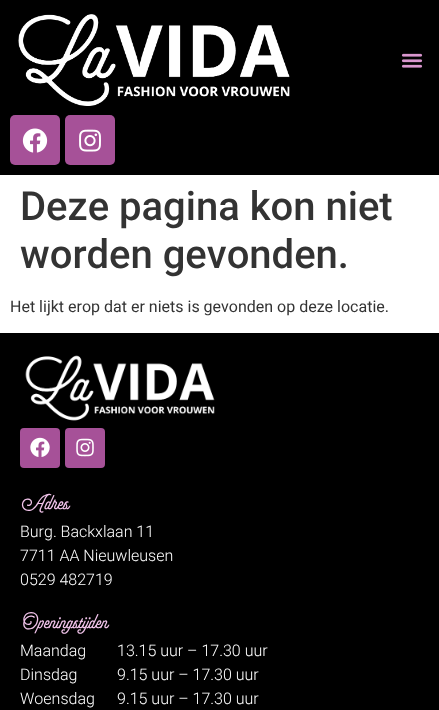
<svg xmlns="http://www.w3.org/2000/svg" width="439" height="710">
	<style>*{font-kerning:none!important;font-variant-ligatures:none!important}</style>
	<rect width="100%" height="100%" fill="#FFFFFF" />
	<rect x="0" y="0" width="439" height="175" fill="#000000" />
	<image x="18" y="14" width="272" height="92" href="assets/img1.png" />
	<image x="401" y="53" width="22" height="15" href="assets/img2.png" />
	<rect x="10" y="115" width="50" height="50" rx="5" fill="#A65198" />
	<image x="22" y="128" width="26" height="25" href="assets/img3.png" />
	<rect x="65" y="115" width="50" height="50" rx="5" fill="#A65198" />
	<image x="79" y="129" width="22" height="23" href="assets/img4.png" />
	<g font-family="Roboto" font-size="40" font-weight="500" fill="#333333">
		<text x="20" y="220">Deze pagina kon niet</text>
		<text x="20" y="268">worden gevonden.</text>
	</g>
	<text x="10" y="312" font-family="Roboto" font-size="16" fill="#333333">Het lijkt erop dat er niets is gevonden op deze locatie.</text>
	<rect x="0" y="333" width="439" height="377" fill="#000000" />
	<image x="25" y="355" width="190" height="66" href="assets/img5.png" />
	<rect x="20" y="428" width="40" height="40" rx="4" fill="#A65198" />
	<image x="30" y="437" width="20" height="20" href="assets/img6.png" />
	<rect x="65" y="428" width="40" height="40" rx="4" fill="#A65198" />
	<image x="76" y="438" width="18" height="19" href="assets/img7.png" />
	<text x="20" y="509" font-family="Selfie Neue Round" font-size="22" fill="#F2C4EB">Adres</text>
	<g font-family="Roboto" font-size="16" font-weight="300" fill="#FFFFFF">
		<text x="20" y="537">Burg. Backxlaan 11</text>
		<text x="20" y="561">7711 AA Nieuwleusen</text>
		<text x="20" y="585">0529 482719</text>
	</g>
	<text x="20" y="628" font-family="Selfie Neue Round" font-size="22" fill="#F2C4EB">Openingstijden</text>
	<g font-family="Roboto" font-size="16" font-weight="300" fill="#FFFFFF">
		<text x="20" y="656">Maandag</text>
		<text x="20" y="680">Dinsdag</text>
		<text x="20" y="704">Woensdag</text>
		<text x="117" y="656">13.15 uur – 17.30 uur</text>
		<text x="117" y="680">9.15 uur – 17.30 uur</text>
		<text x="117" y="704">9.15 uur – 17.30 uur</text>
	</g>
</svg>
